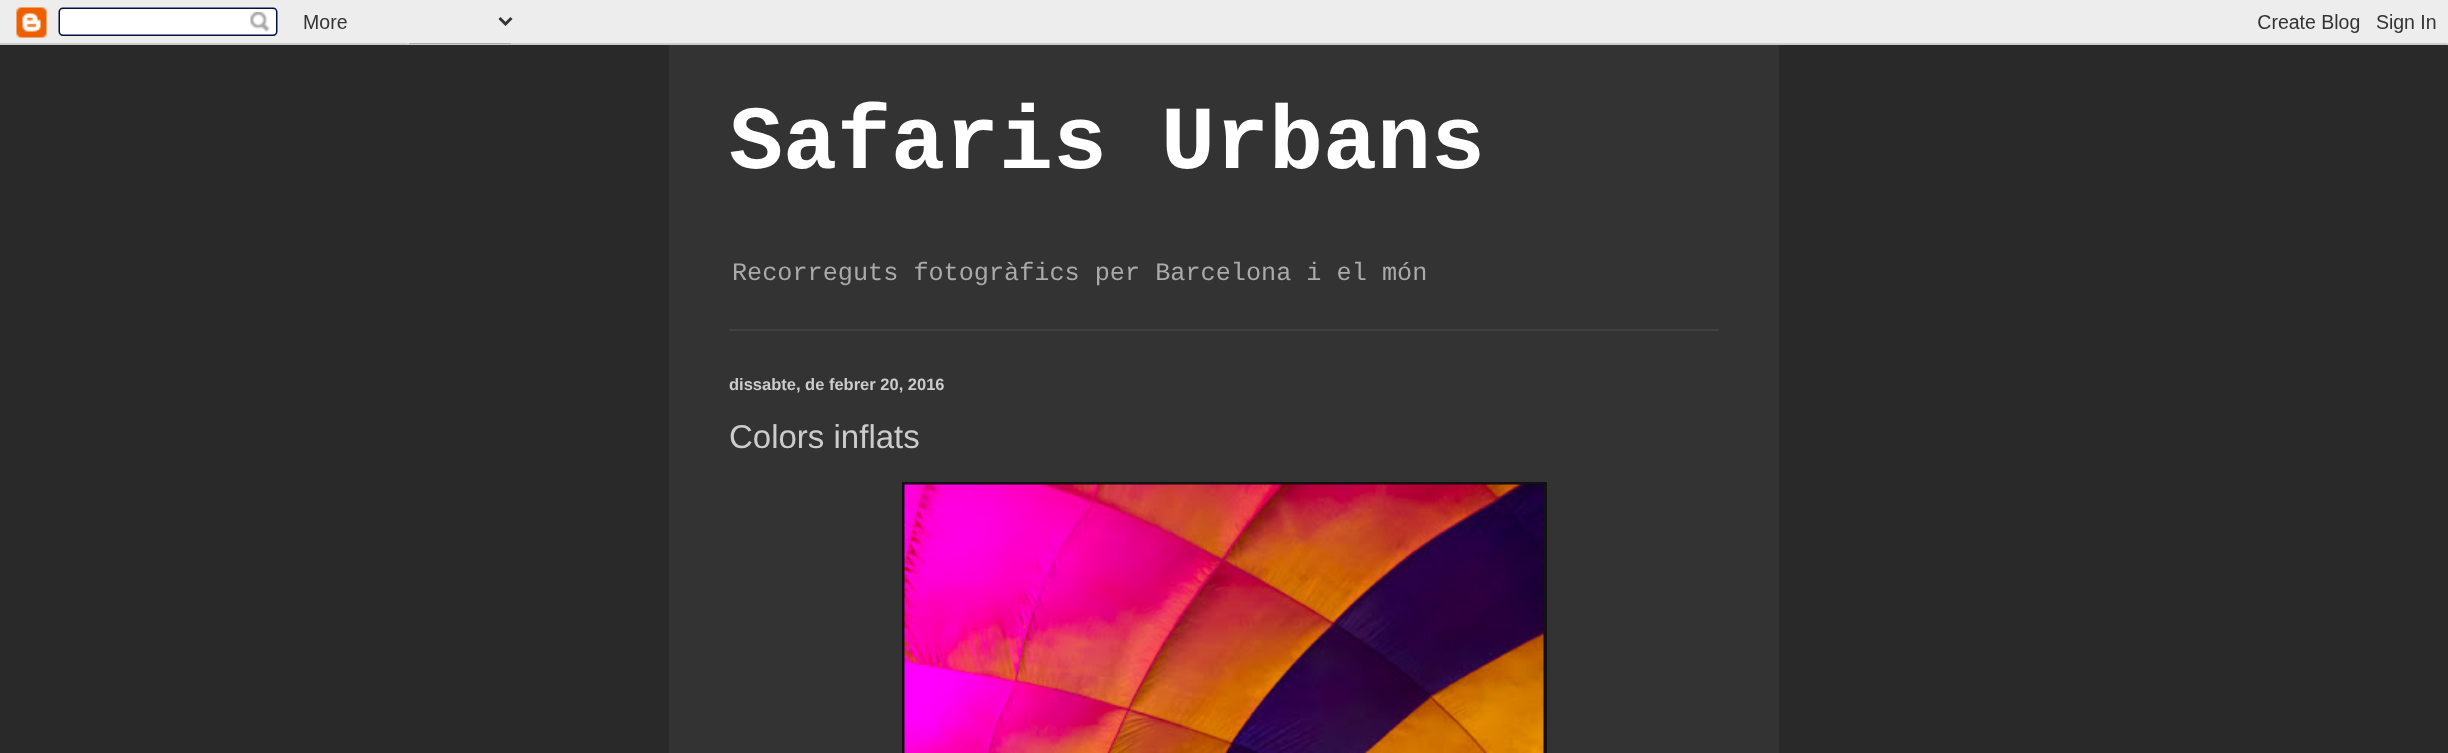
<svg xmlns="http://www.w3.org/2000/svg" width="2448" height="753">
	<rect width="100%" height="100%" fill="#292929" />
	<image x="0" y="0" width="2448" height="45" href="assets/img1.png" />
	<rect x="669" y="45" width="1110" height="708" fill="#333333" />
	<text x="729" y="168" font-family="Liberation Mono" font-size="90" font-weight="700" fill="#FFFFFF">Safaris Urbans</text>
	<text x="732" y="280" font-family="Liberation Mono" font-size="25.2" fill="#AAAAAA">Recorreguts fotogràfics per Barcelona i el món</text>
	<rect x="729" y="329" width="990" height="2" fill="#404040" />
	<text x="729" y="390" font-family="Liberation Sans" font-size="16.5" font-weight="700" fill="#CCCCCC">dissabte, de febrer 20, 2016</text>
	<text x="729" y="448" font-family="Liberation Sans" font-size="33" fill="#CCCCCC">Colors inflats</text>
	<rect x="902" y="482" width="645" height="271" fill="#111111" />
	<image x="904" y="484" width="640" height="269" href="assets/img2.png" />
</svg>
